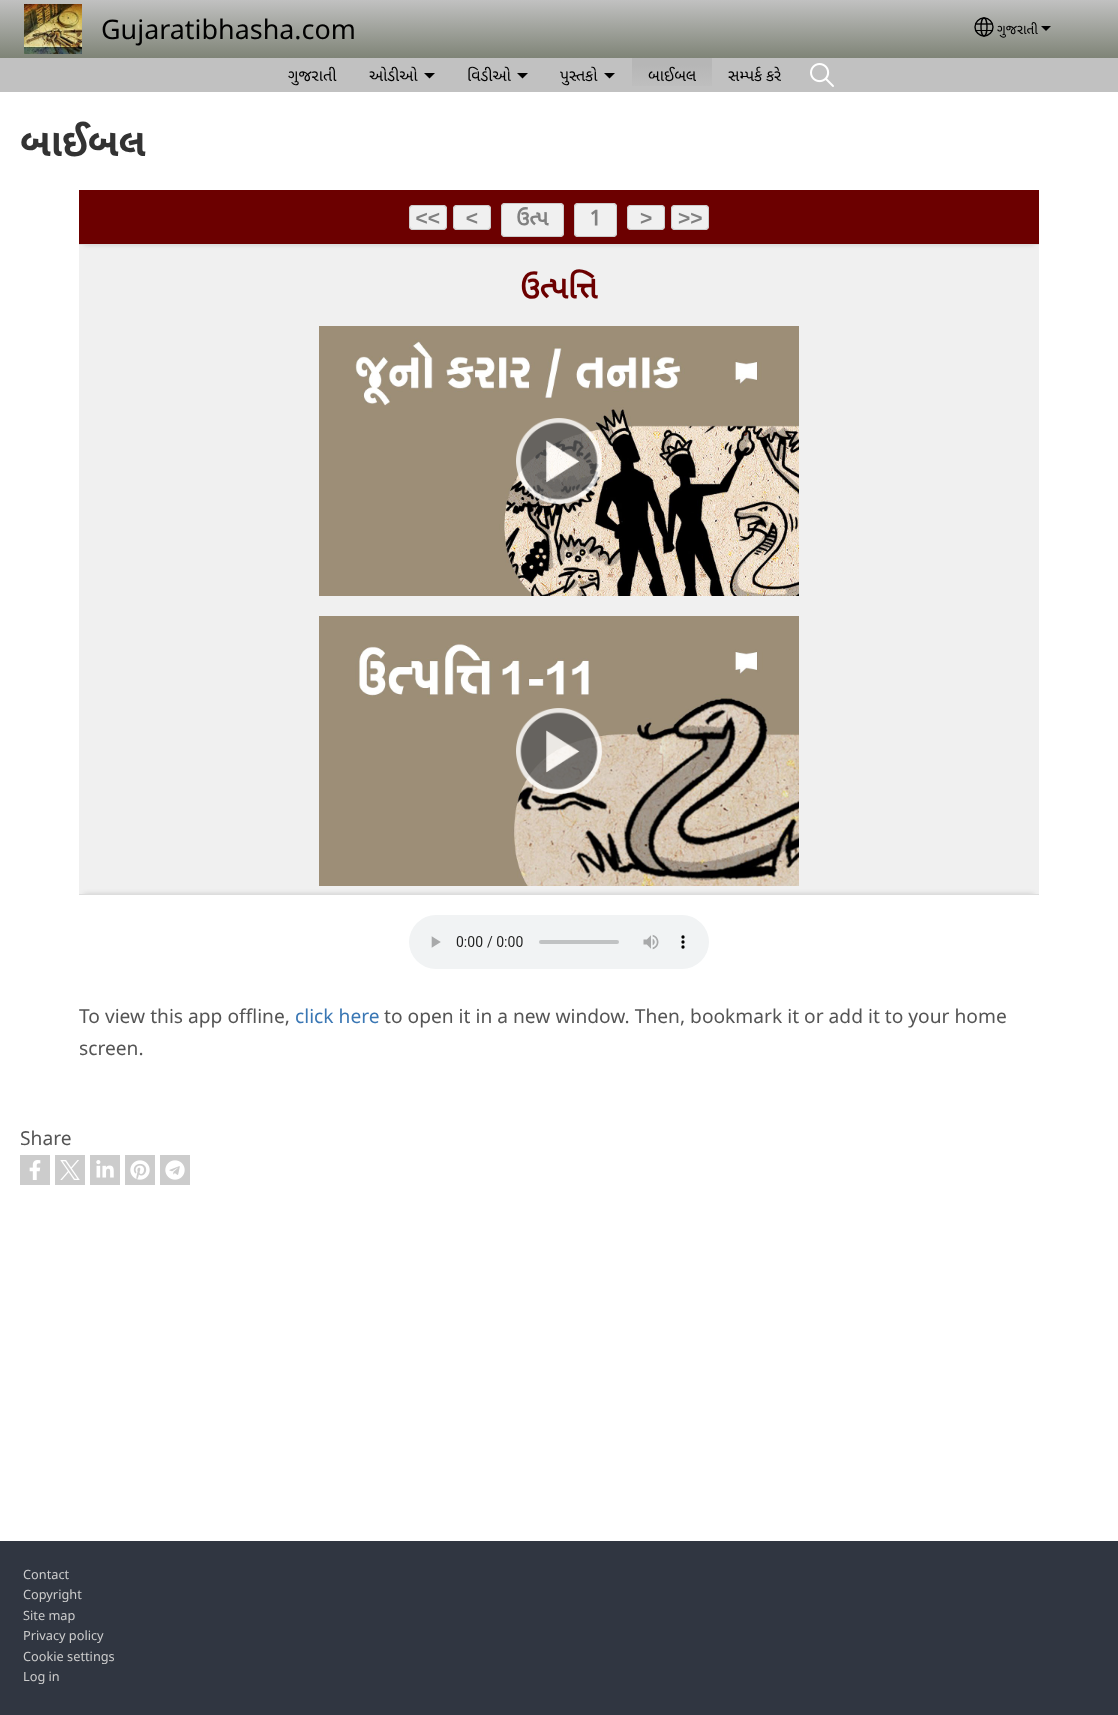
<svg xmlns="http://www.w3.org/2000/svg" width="1118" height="1715">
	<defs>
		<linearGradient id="g1" gradientUnits="userSpaceOnUse" x1="559" y1="0" x2="559" y2="58"><stop offset="0" stop-color="#C1C1C1" /><stop offset="1" stop-color="#7F8477" /></linearGradient>
		<clipPath id="clip1"><rect x="994" y="19" width="47" height="20" /></clipPath>
		<linearGradient id="g2" gradientUnits="userSpaceOnUse" x1="672" y1="58" x2="672" y2="92"><stop offset="0.2" stop-color="#B6B6B6" /><stop offset="1" stop-color="#C1C1C1" /></linearGradient>
	</defs>
	<rect width="100%" height="100%" fill="#FFFFFF" />
	<rect x="0" y="0" width="1118" height="58" fill="url(#g1)" />
	<image x="24" y="4" width="58" height="50" href="assets/img1.png" />
	<text x="101" y="39" font-family="Noto Sans" font-size="26.9" fill="#010101">Gujaratibhasha.com</text>
	<circle cx="984" cy="27" r="9" fill="none" stroke="#010101" stroke-width="1.4" />
	<ellipse cx="984" cy="27" rx="3" ry="9" fill="none" stroke="#010101" stroke-width="1.4" />
	<path d="M975 24H992.5" fill="none" stroke="#010101" stroke-width="1.4" />
	<rect x="975" y="30" width="18" height="1" fill="#010101" />
	<g clip-path="url(#clip1)">
		<text x="997" y="34" font-family="Noto Sans Gujarati" font-size="13.5" fill="#010101">ગુજરાતી</text>
	</g>
	<path d="M1041 26H1051L1046 31Z" fill="#010101" />
	<rect x="0" y="58" width="1118" height="34" fill="#C1C1C1" />
	<g font-family="Noto Sans Gujarati" font-size="16" fill="#010101">
		<text x="288" y="81">ગુજરાતી</text>
		<text x="369" y="81">ઓડીઓ</text>
	</g>
	<path d="M424 73H435L429.5 78.5Z" fill="#010101" />
	<text x="467" y="81" font-family="Noto Sans Gujarati" font-size="16" fill="#010101">વિડીઓ</text>
	<path d="M517 73H528L522.5 78.5Z" fill="#010101" />
	<text x="560" y="81" font-family="Noto Sans Gujarati" font-size="16" fill="#010101">પુસ્તકો</text>
	<path d="M604 73H615L609.5 78.5Z" fill="#010101" />
	<rect x="632" y="58" width="80" height="28" fill="url(#g2)" />
	<g font-family="Noto Sans Gujarati" font-size="16" fill="#010101">
		<text x="648" y="81">બાઈબલ</text>
		<text x="728" y="81" word-spacing="-1">સમ્પર્ક કરે</text>
	</g>
	<image x="810" y="63" width="24" height="24" href="assets/img2.png" />
	<text x="20" y="156" font-family="Noto Sans Gujarati" font-size="38.5" font-weight="700" fill="#333333">બાઈબલ</text>
	<image x="79" y="190" width="960" height="800" href="assets/img3.png" />
	<text x="79" y="1023" font-family="Noto Sans" font-size="19.2" fill="#555555">To view this app offline,</text>
	<text x="295" y="1023" font-family="Noto Sans" font-size="19.2" fill="#3A77B4">click here</text>
	<g font-family="Noto Sans" font-size="19.2" fill="#555555">
		<text x="384" y="1023">to open it in a new window. Then, bookmark it or add it to your home</text>
		<text x="79" y="1055">screen.</text>
		<text x="20" y="1145">Share</text>
	</g>
	<rect x="20" y="1155" width="30" height="30" fill="#CCCCCC" />
	<image x="29" y="1160" width="12" height="20" href="assets/img4.png" />
	<rect x="55" y="1155" width="30" height="30" fill="#CCCCCC" />
	<image x="60" y="1160" width="20" height="20" href="assets/img5.png" />
	<rect x="90" y="1155" width="30" height="30" fill="#CCCCCC" />
	<image x="96" y="1160" width="18" height="18" href="assets/img6.png" />
	<rect x="125" y="1155" width="30" height="30" fill="#CCCCCC" />
	<image x="130" y="1160" width="20" height="20" href="assets/img7.png" />
	<rect x="160" y="1155" width="30" height="30" fill="#CCCCCC" />
	<image x="165" y="1160" width="20" height="20" href="assets/img8.png" />
	<rect x="0" y="1541" width="1118" height="174" fill="#303641" />
	<g font-family="Noto Sans" font-size="12.75" fill="#CCCCCC">
		<text x="23" y="1579">Contact</text>
		<text x="23" y="1599">Copyright</text>
		<text x="23" y="1620">Site map</text>
		<text x="23" y="1640">Privacy policy</text>
		<text x="23" y="1661">Cookie settings</text>
		<text x="23" y="1681">Log in</text>
	</g>
</svg>
